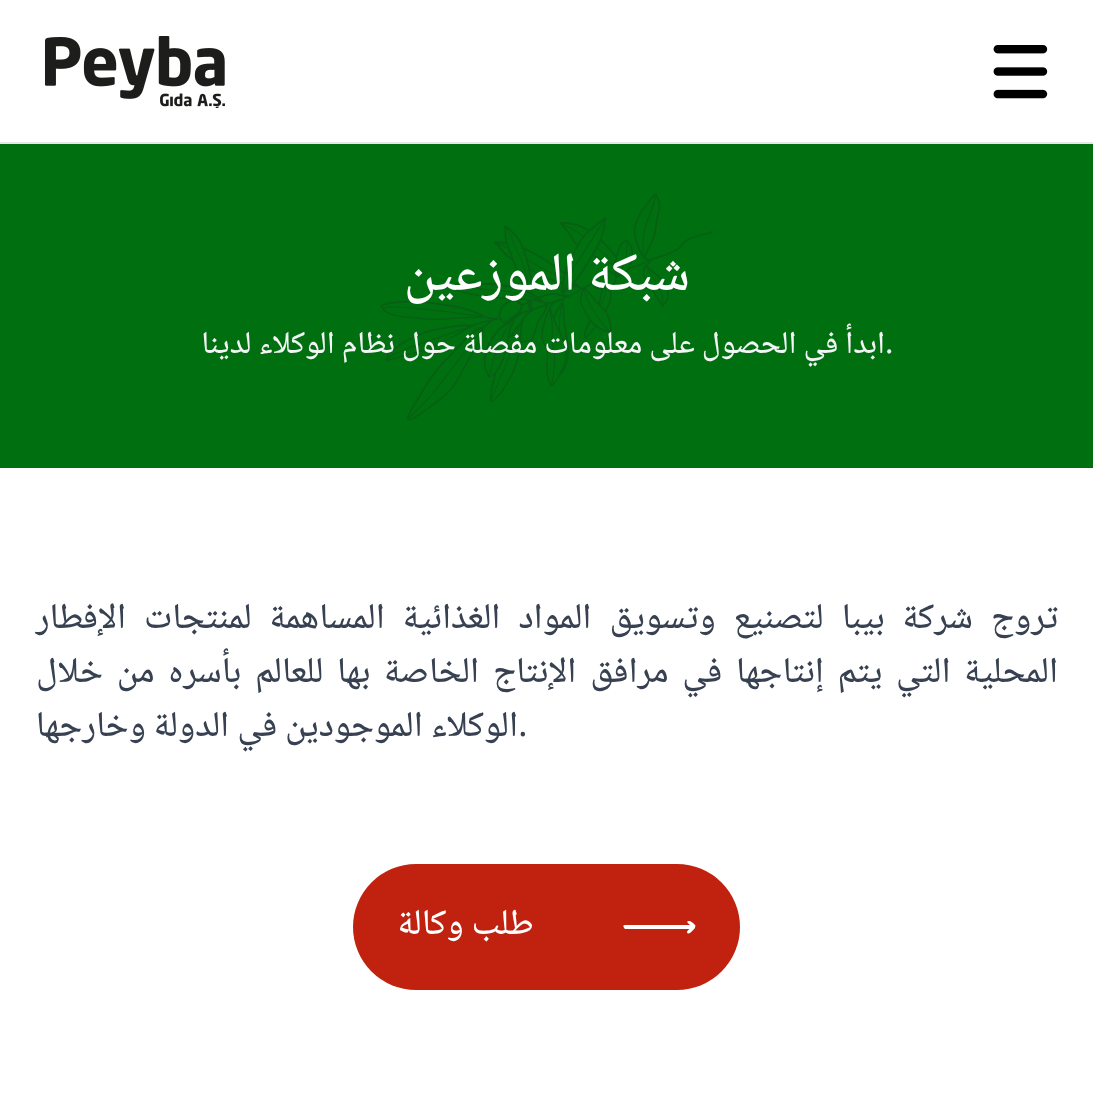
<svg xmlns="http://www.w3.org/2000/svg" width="1093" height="1100">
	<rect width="100%" height="100%" fill="#FFFFFF" />
	<rect x="0" y="142" width="1093" height="2" fill="#E5E7EB" />
	<image x="993" y="45" width="55" height="54" href="assets/img1.png" />
	<image x="45" y="36" width="180" height="72" href="assets/img2.png" />
	<rect x="0" y="144" width="1093" height="324" fill="#006F10" />
	<image x="381" y="194" width="331" height="227" href="assets/img3.png" />
	<text x="690" y="290" font-family="Noto Naskh Arabic" font-size="54" font-weight="500" direction="rtl" fill="#FFFFFF">شبكة الموزعين</text>
	<text x="885" y="353" font-family="Noto Naskh Arabic" font-size="31.5" font-weight="500" fill="#F3F4F6">.</text>
	<text x="885" y="353" font-family="Noto Naskh Arabic" font-size="31.5" font-weight="500" direction="rtl" fill="#F3F4F6">ابدأ في الحصول على معلومات مفصلة حول نظام الوكلاء لدينا</text>
	<g font-family="Noto Naskh Arabic" font-size="36" font-weight="500" direction="rtl" fill="#374151">
		<text x="1058" y="628" word-spacing="10">تروج شركة بيبا لتصنيع وتسويق المواد الغذائية المساهمة لمنتجات الإفطار</text>
		<text x="1058" y="682" word-spacing="5.75">المحلية التي يتم إنتاجها في مرافق الإنتاج الخاصة بها للعالم بأسره من خلال</text>
	</g>
	<text x="518" y="736" font-family="Noto Naskh Arabic" font-size="36" font-weight="500" fill="#374151">.</text>
	<text x="518" y="736" font-family="Noto Naskh Arabic" font-size="36" font-weight="500" direction="rtl" fill="#374151">الوكلاء الموجودين في الدولة وخارجها</text>
	<rect x="353" y="864" width="387" height="126" rx="63" fill="#C0220F" />
	<path d="M625 925H690C689 924 686 922 688 921H690L693 923C697 927 695 925 695 928C695 928 688 937 687 932C687 931 689 929 690 929H625C624 928 622 925 625 925Z" fill="#FFFFFF" />
	<text x="534" y="934" font-family="Noto Naskh Arabic" font-size="36" font-weight="500" direction="rtl" fill="#FFFFFF">طلب وكالة</text>
</svg>
